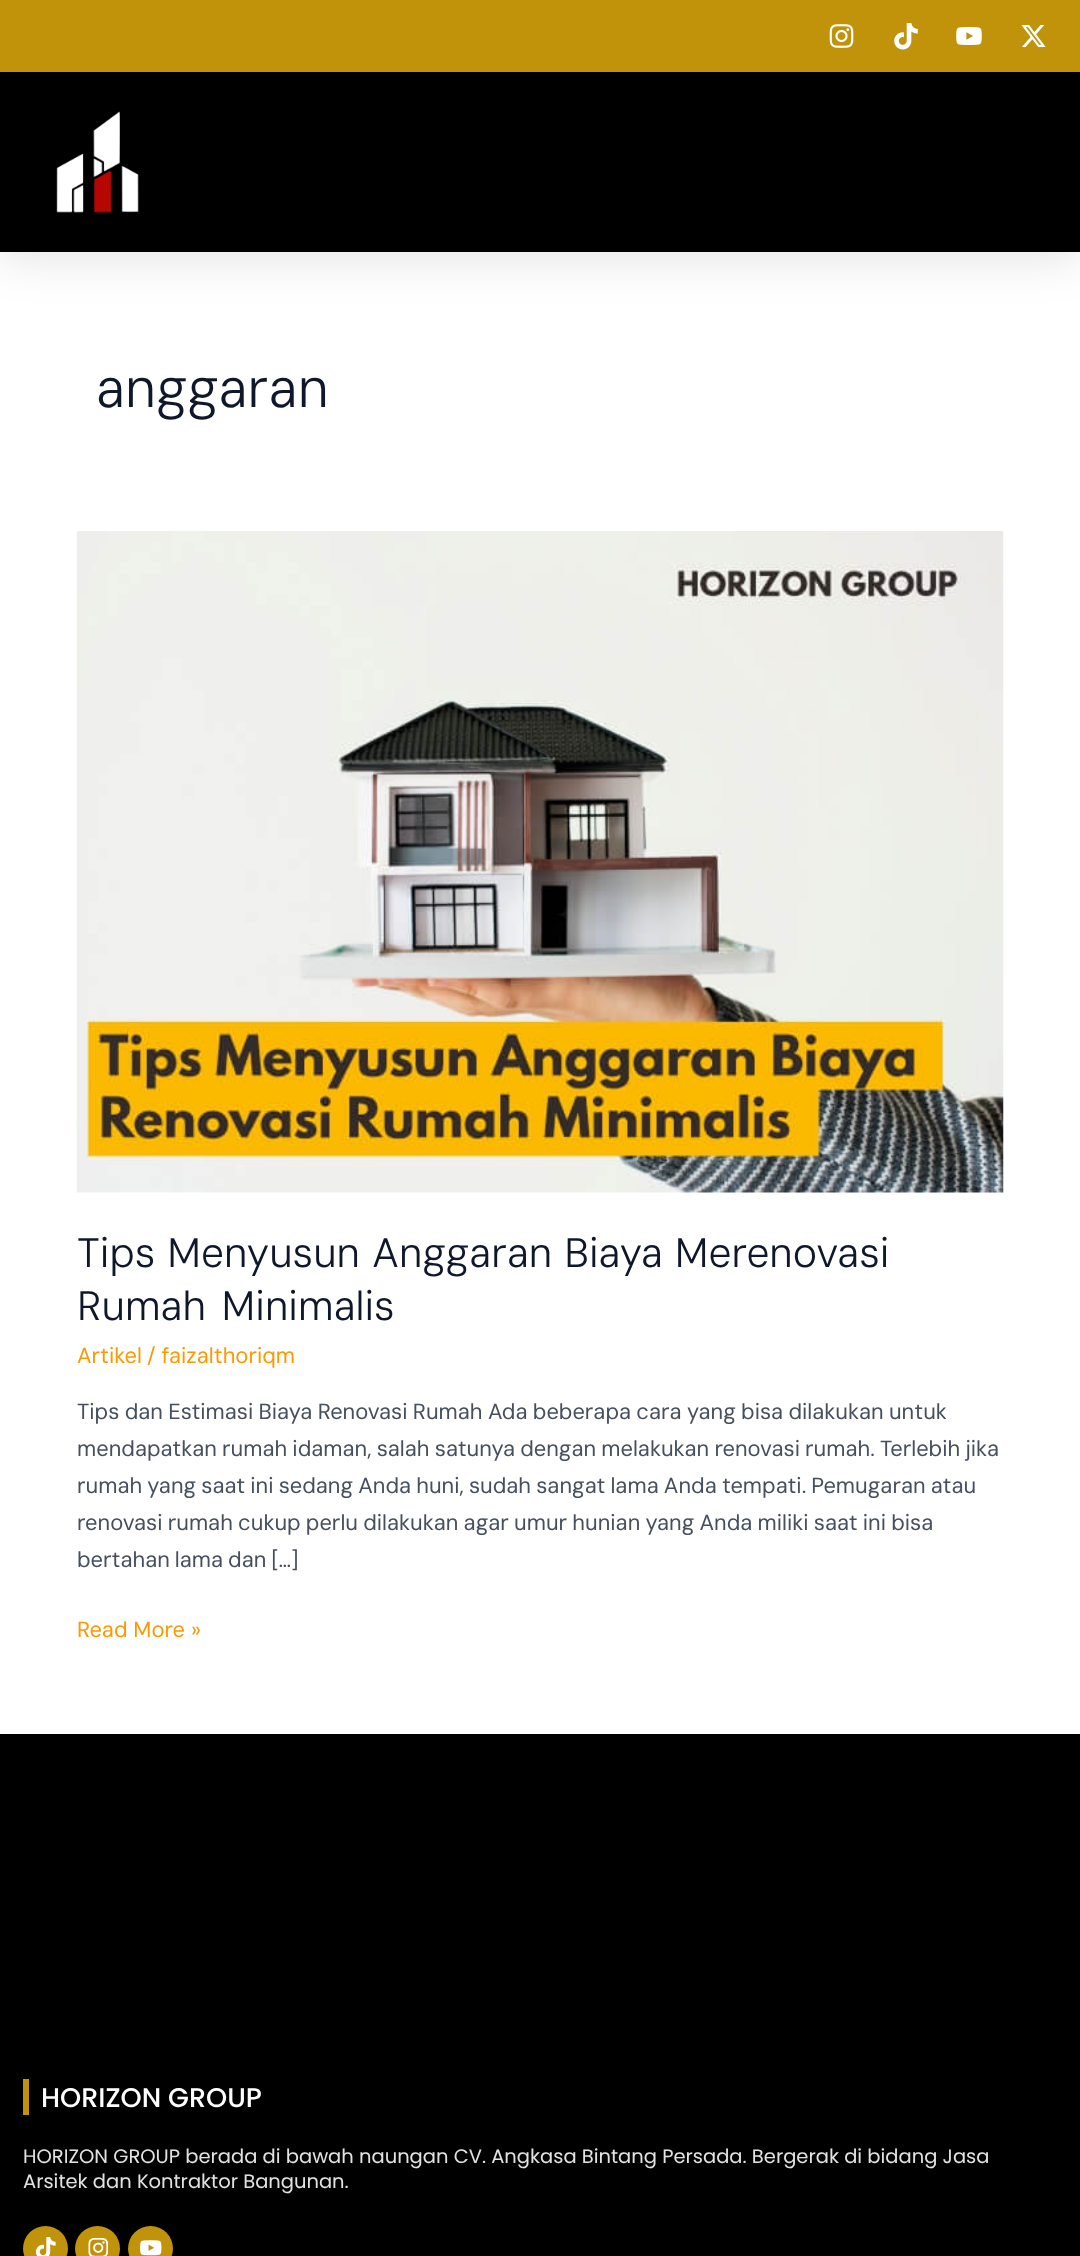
<svg xmlns="http://www.w3.org/2000/svg" width="1080" height="2256">
	<rect width="100%" height="100%" fill="#FFFFFF" />
	<rect x="0" y="8" width="1080" height="252" fill="#000000" fill-opacity="0.1" filter="blur(22.5px)" />
	<rect x="0" y="0" width="1080" height="72" fill="#C0930B" />
	<image x="829" y="24" width="25" height="24" href="assets/img1.png" />
	<image x="894" y="23" width="24" height="27" href="assets/img2.png" />
	<image x="956" y="27" width="26" height="18" href="assets/img3.png" />
	<image x="1021" y="25" width="25" height="22" href="assets/img4.png" />
	<rect x="0" y="72" width="1080" height="180" fill="#000000" />
	<image x="56" y="111" width="83" height="102" href="assets/img5.png" />
	<text x="96" y="407" font-family="DM Sans" font-size="54.5" font-weight="300" fill="#0F172A">anggaran</text>
	<image x="76" y="531" width="928" height="662" href="assets/img6.png" />
	<g font-family="DM Sans" font-size="41" font-weight="300" fill="#0F172A">
		<text x="77" y="1267" word-spacing="0.5">Tips Menyusun Anggaran Biaya Merenovasi</text>
		<text x="77" y="1320" word-spacing="4">Rumah Minimalis</text>
	</g>
	<g font-family="DM Sans" font-size="21.9" fill="#FD9800">
		<text x="77" y="1363">Artikel</text>
		<text x="147" y="1363">/ faizalthoriqm</text>
	</g>
	<g font-family="DM Sans" font-size="21.9" fill="#454F5E">
		<text x="77" y="1419" word-spacing="-0.6">Tips dan Estimasi Biaya Renovasi Rumah Ada beberapa cara yang bisa dilakukan untuk</text>
		<text x="77" y="1456" word-spacing="-0.75">mendapatkan rumah idaman, salah satunya dengan melakukan renovasi rumah. Terlebih jika</text>
		<text x="77" y="1493" word-spacing="-0.75">rumah yang saat ini sedang Anda huni, sudah sangat lama Anda tempati. Pemugaran atau</text>
		<text x="77" y="1530" word-spacing="-0.7">renovasi rumah cukup perlu dilakukan agar umur hunian yang Anda miliki saat ini bisa</text>
		<text x="77" y="1567" word-spacing="-1">bertahan lama dan […]</text>
	</g>
	<text x="77" y="1637" font-family="DM Sans" font-size="21.9" fill="#FD9800">Read More »</text>
	<rect x="0" y="1734" width="1080" height="522" fill="#000000" />
	<rect x="23" y="2079" width="6" height="36" fill="#C0930B" />
	<text x="41" y="2107" font-family="Poppins" font-size="27" font-weight="500" fill="#FFFFFF">HORIZON GROUP</text>
	<g font-family="Poppins" font-size="19.5" fill="#E2E2E2">
		<text x="23" y="2163">HORIZON GROUP berada di bawah naungan CV. Angkasa Bintang Persada. Bergerak di bidang Jasa</text>
		<text x="23" y="2188">Arsitek dan Kontraktor Bangunan.</text>
	</g>
	<circle cx="45.5" cy="2248.5" r="22.5" fill="#C0930B" />
	<image x="35" y="2237" width="21" height="19" href="assets/img7.png" />
	<circle cx="97.5" cy="2248.5" r="22.5" fill="#C0930B" />
	<image x="88" y="2238" width="21" height="18" href="assets/img8.png" />
	<circle cx="150.5" cy="2248.5" r="22.5" fill="#C0930B" />
	<image x="140" y="2240" width="22" height="16" href="assets/img9.png" />
</svg>
